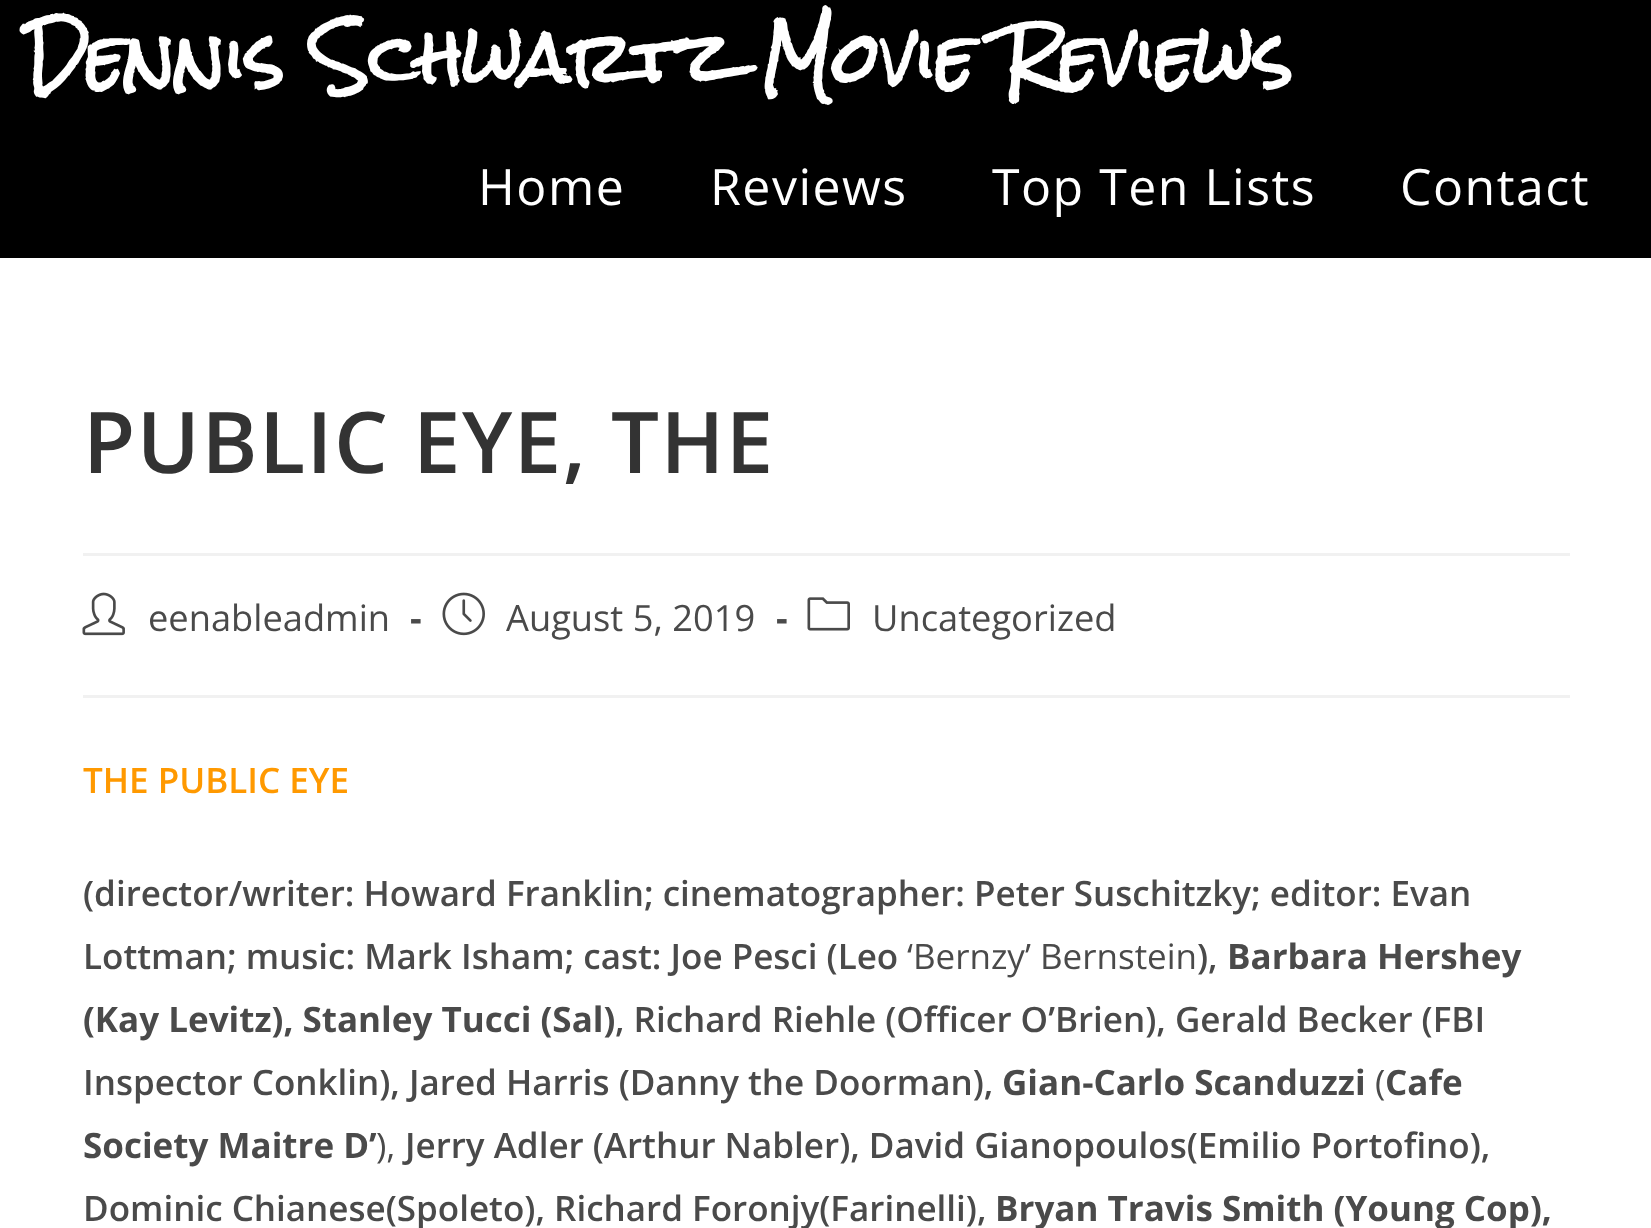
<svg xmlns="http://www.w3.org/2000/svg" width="1651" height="1228">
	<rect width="100%" height="100%" fill="#FFFFFF" />
	<rect x="0" y="0" width="1651" height="258" fill="#000000" />
	<text x="25" y="85" font-family="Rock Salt" font-size="67.5" font-weight="700" fill="#FFFFFF">Dennis Schwartz Movie Reviews</text>
	<g font-family="Open Sans" font-size="50" letter-spacing="1.5" fill="#FFFFFF">
		<text x="478" y="205">Home</text>
		<text x="710" y="205">Reviews</text>
		<text x="992" y="205">Top Ten Lists</text>
		<text x="1400" y="205">Contact</text>
	</g>
	<rect x="83" y="553" width="1487" height="3" fill="#F1F1F1" />
	<text x="83" y="473" font-family="Open Sans" font-size="85" font-weight="600" letter-spacing="1.5" fill="#333333">PUBLIC EYE, THE</text>
	<rect x="83" y="695" width="1487" height="3" fill="#F1F1F1" />
	<image x="82" y="592" width="43" height="44" href="assets/img1.png" />
	<text x="148" y="631" font-family="Open Sans" font-size="36.25" fill="#4A4A4A">eenableadmin</text>
	<text x="410" y="631" font-family="Open Sans" font-size="36.25" font-weight="700" fill="#4A4A4A">-</text>
	<image x="442" y="592" width="43" height="44" href="assets/img2.png" />
	<text x="506" y="631" font-family="Open Sans" font-size="36.25" fill="#4A4A4A">August 5, 2019</text>
	<text x="776" y="631" font-family="Open Sans" font-size="36.25" font-weight="700" fill="#4A4A4A">-</text>
	<image x="807" y="597" width="43" height="34" href="assets/img3.png" />
	<text x="872" y="631" font-family="Open Sans" font-size="36.25" fill="#4A4A4A">Uncategorized</text>
	<text x="83" y="793" font-family="Open Sans" font-size="35" font-weight="600" fill="#FF9900">THE PUBLIC EYE</text>
	<g font-family="Open Sans" font-size="35" font-weight="600" fill="#4A4A4A">
		<text x="83" y="906">(director/writer: Howard Franklin; cinematographer: Peter Suschitzky; editor: Evan</text>
		<text x="83" y="969">Lottman; music: Mark Isham; cast: Joe Pesci (Leo</text>
	</g>
	<text x="907" y="969" font-family="Open Sans" font-size="35" fill="#4A4A4A">‘Bernzy’ Bernstein</text>
	<text x="1197" y="969" font-family="Open Sans" font-size="35" font-weight="600" fill="#4A4A4A">),</text>
	<g font-family="Open Sans" font-size="35" font-weight="700" fill="#4A4A4A">
		<text x="1227" y="969">Barbara Hershey</text>
		<text x="83" y="1032">(Kay Levitz), Stanley Tucci (Sal)</text>
	</g>
	<g font-family="Open Sans" font-size="35" font-weight="600" fill="#4A4A4A">
		<text x="615" y="1032">, Richard Riehle (Officer O’Brien), Gerald Becker (FBI</text>
		<text x="83" y="1095">Inspector Conklin), Jared Harris (Danny the Doorman),</text>
	</g>
	<text x="1002" y="1095" font-family="Open Sans" font-size="35" font-weight="700" fill="#4A4A4A">Gian-Carlo Scanduzzi</text>
	<text x="1375" y="1095" font-family="Open Sans" font-size="35" fill="#4A4A4A">(</text>
	<g font-family="Open Sans" font-size="35" font-weight="700" fill="#4A4A4A">
		<text x="1385" y="1095">Cafe</text>
		<text x="83" y="1158">Society Maitre D’</text>
	</g>
	<text x="376" y="1158" font-family="Open Sans" font-size="35" fill="#4A4A4A">),</text>
	<g font-family="Open Sans" font-size="35" font-weight="600" fill="#4A4A4A">
		<text x="405" y="1158">Jerry Adler (Arthur Nabler), David Gianopoulos(Emilio Portofino),</text>
		<text x="83" y="1221">Dominic Chianese(Spoleto), Richard Foronjy(Farinelli),</text>
	</g>
	<text x="995" y="1221" font-family="Open Sans" font-size="35" font-weight="700" fill="#4A4A4A">Bryan Travis Smith (Young Cop),</text>
</svg>
